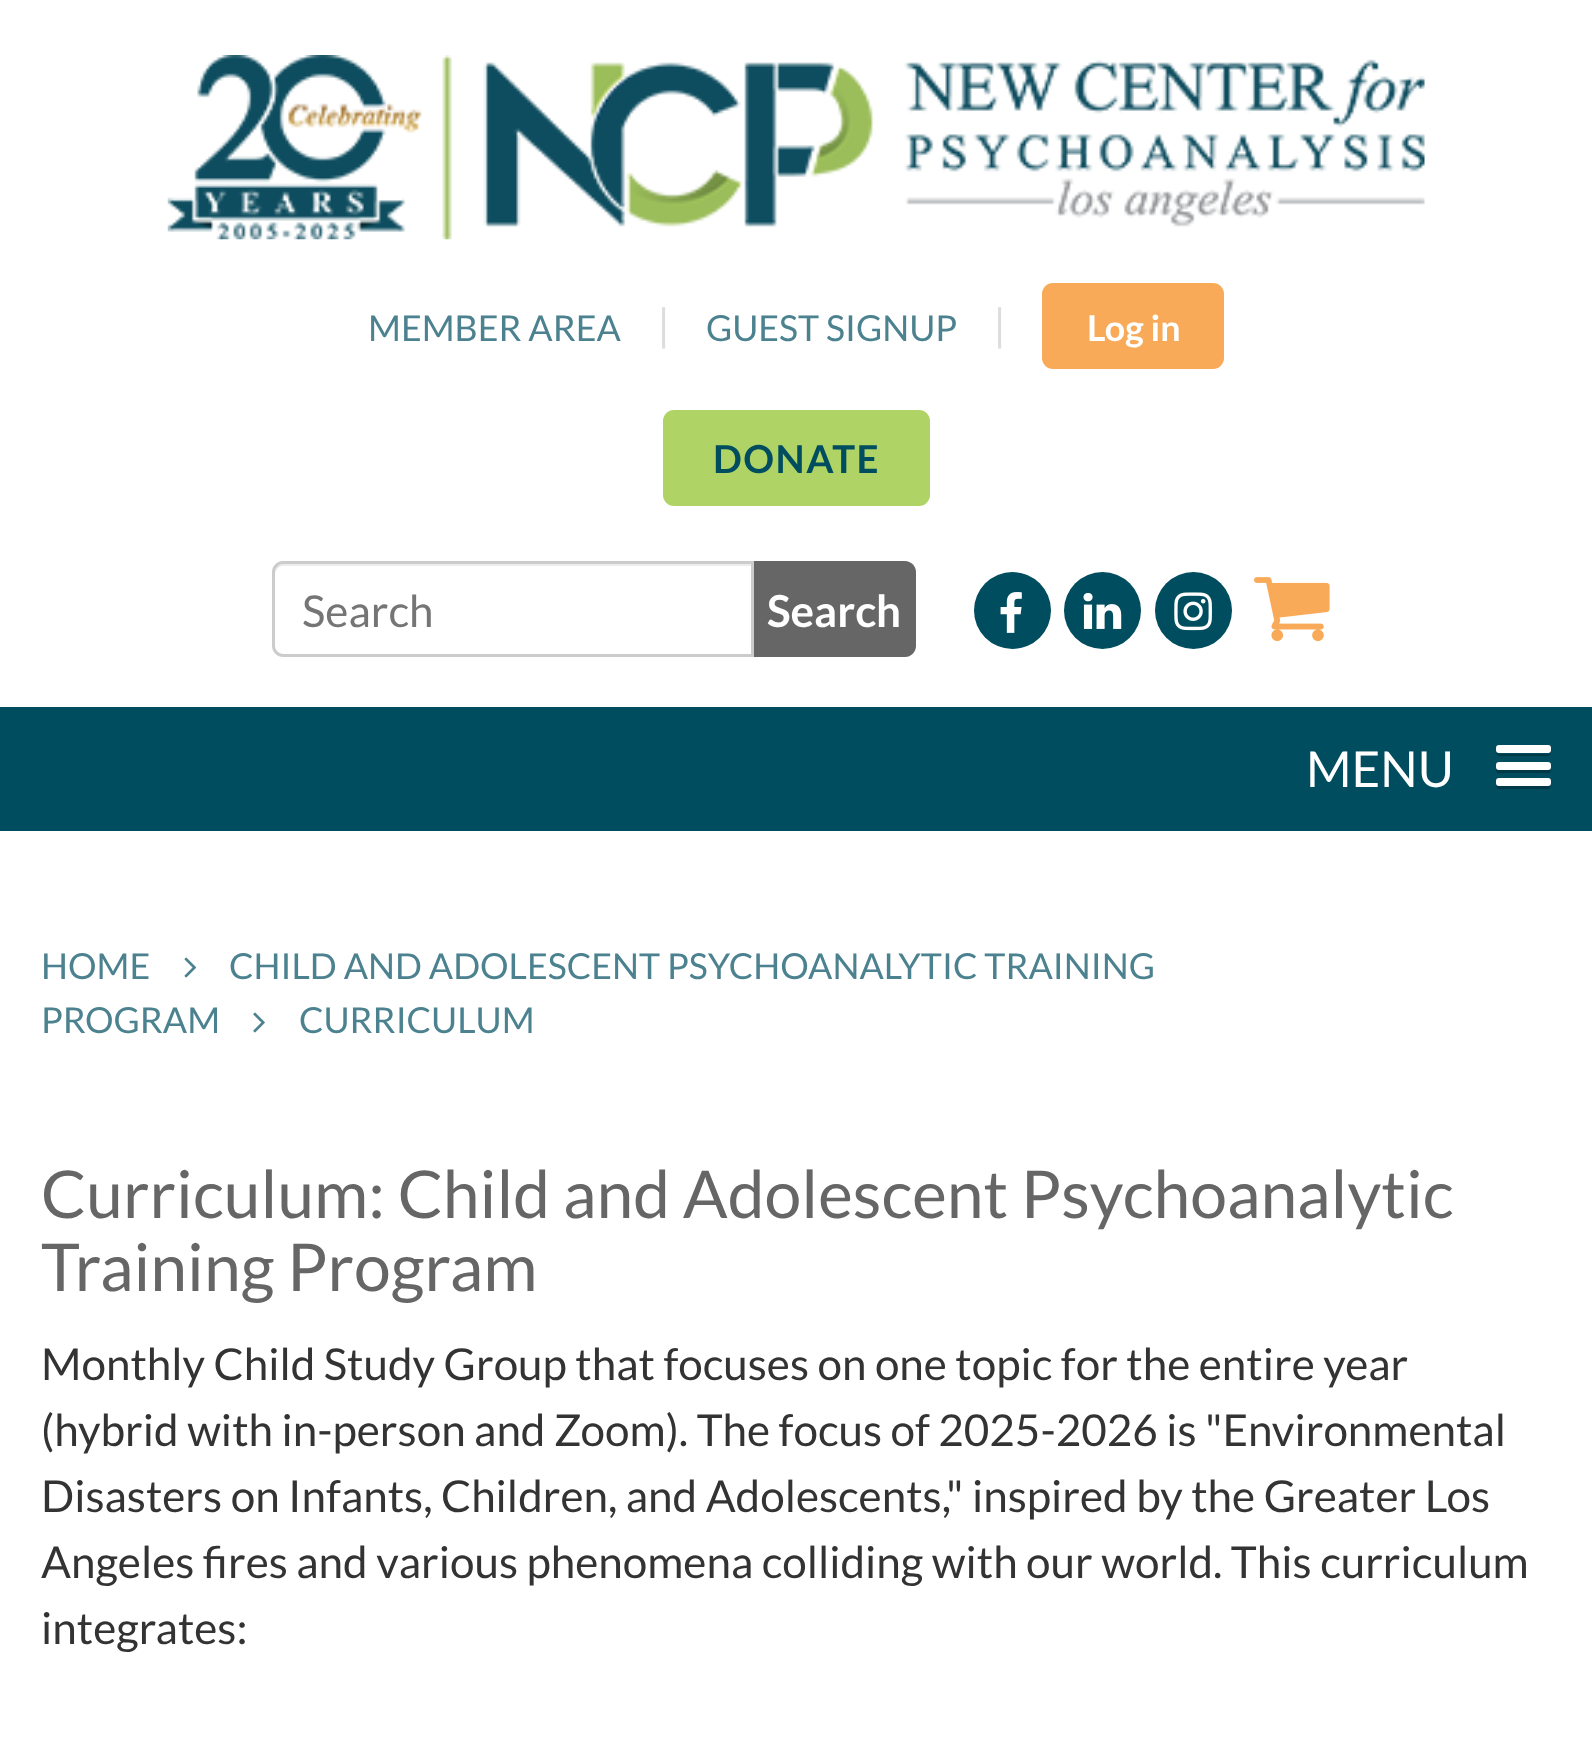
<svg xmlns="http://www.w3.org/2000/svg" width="1592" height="1760">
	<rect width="100%" height="100%" fill="#FFFFFF" />
	<image x="167" y="55" width="1258" height="185" href="assets/img1.png" />
	<text x="368" y="341" font-family="Lato" font-size="35.75" fill="#4C828F">MEMBER AREA</text>
	<text x="657" y="341" font-family="Lato" font-size="44" fill="#DDDDDD">|</text>
	<text x="706" y="341" font-family="Lato" font-size="35.75" fill="#4C828F">GUEST SIGNUP</text>
	<text x="993" y="341" font-family="Lato" font-size="44" fill="#DDDDDD">|</text>
	<rect x="1042" y="283" width="182" height="86" rx="11" fill="#F8AA58" />
	<text x="1087" y="341" font-family="Lato" font-size="35.75" font-weight="700" fill="#FFFFFF">Log in</text>
	<rect x="663" y="410" width="267" height="96" rx="11" fill="#AFD365" />
	<text x="713" y="473" font-family="Lato" font-size="38.5" font-weight="700" letter-spacing="1.5" fill="#004D5F">DONATE</text>
	<path d="M283 566H751V564H281C276 565 275 570 275 575C275 570 279 566 283 566Z" fill="#ECECEC" />
	<path d="M283 562.5H752.5V655.5H283C278 655.5 273.5 651 273.5 646V572C273.5 567 278 562.5 283 562.5Z" fill="none" stroke="#CCCCCC" stroke-width="3" />
	<text x="302" y="627" font-family="Lato" font-size="44" fill="#757575">Search</text>
	<path d="M754 561H905C911 561 916 566 916 572V646C916 652 911 657 905 657H754Z" fill="#666666" />
	<text x="767" y="627" font-family="Lato" font-size="44" font-weight="700" fill="#FFFFFF">Search</text>
	<circle cx="1012.5" cy="610.5" r="38.5" fill="#004D5F" />
	<image x="1000" y="592" width="22" height="41" href="assets/img2.png" />
	<circle cx="1102.5" cy="610.5" r="38.5" fill="#004D5F" />
	<image x="1083" y="592" width="39" height="37" href="assets/img3.png" />
	<circle cx="1193.5" cy="610.5" r="38.5" fill="#004D5F" />
	<image x="1174" y="592" width="38" height="39" href="assets/img4.png" />
	<image x="1254" y="577" width="76" height="65" href="assets/img5.png" />
	<rect x="0" y="707" width="1592" height="124" fill="#004D5F" />
	<text x="1306" y="787" font-family="Lato" font-size="49.5" fill="#FFFFFF">MENU</text>
	<path d="M1496 751C1496 758 1501 756 1507 756H1540C1546 756 1551 758 1551 751C1551 752 1550 754 1548 754H1499C1497 754 1496 752 1496 751Z" fill="#003A47" />
	<rect x="1496" y="745" width="55" height="8" rx="3" fill="#FFFFFF" />
	<path d="M1496 768C1495 775 1501 773 1507 773H1540C1546 773 1552 775 1551 768C1551 769 1550 770 1548 770H1499C1497 770 1496 769 1496 768Z" fill="#003A47" />
	<rect x="1496" y="762" width="55" height="8" rx="3" fill="#FFFFFF" />
	<path d="M1496 784C1496 791 1501 789 1507 789H1540C1546 789 1551 791 1551 784C1551 785 1550 786 1548 786H1499C1497 786 1496 785 1496 784Z" fill="#003A47" />
	<rect x="1496" y="778" width="55" height="8" rx="3" fill="#FFFFFF" />
	<text x="41" y="979" font-family="Lato" font-size="35.75" fill="#4C828F">HOME</text>
	<image x="184" y="957" width="13" height="21" href="assets/img6.png" />
	<g font-family="Lato" font-size="35.75" fill="#4C828F">
		<text x="229" y="979">CHILD AND ADOLESCENT PSYCHOANALYTIC TRAINING</text>
		<text x="41" y="1033">PROGRAM</text>
	</g>
	<image x="253" y="1012" width="12" height="21" href="assets/img7.png" />
	<text x="299" y="1033" font-family="Lato" font-size="35.75" fill="#4C828F">CURRICULUM</text>
	<g font-family="Lato" font-size="66" fill="#666666">
		<text x="41" y="1218">Curriculum: Child and Adolescent Psychoanalytic</text>
		<text x="41" y="1291">Training Program</text>
	</g>
	<g font-family="Lato" font-size="44" fill="#333333">
		<text x="41" y="1380">Monthly Child Study Group that focuses on one topic for the entire year</text>
		<text x="41" y="1446">(hybrid with in-person and Zoom). The focus of 2025-2026 is "Environmental</text>
		<text x="41" y="1512">Disasters on Infants, Children, and Adolescents," inspired by the Greater Los</text>
		<text x="41" y="1578">Angeles fires and various phenomena colliding with our world. This curriculum</text>
		<text x="41" y="1644">integrates:</text>
	</g>
</svg>
